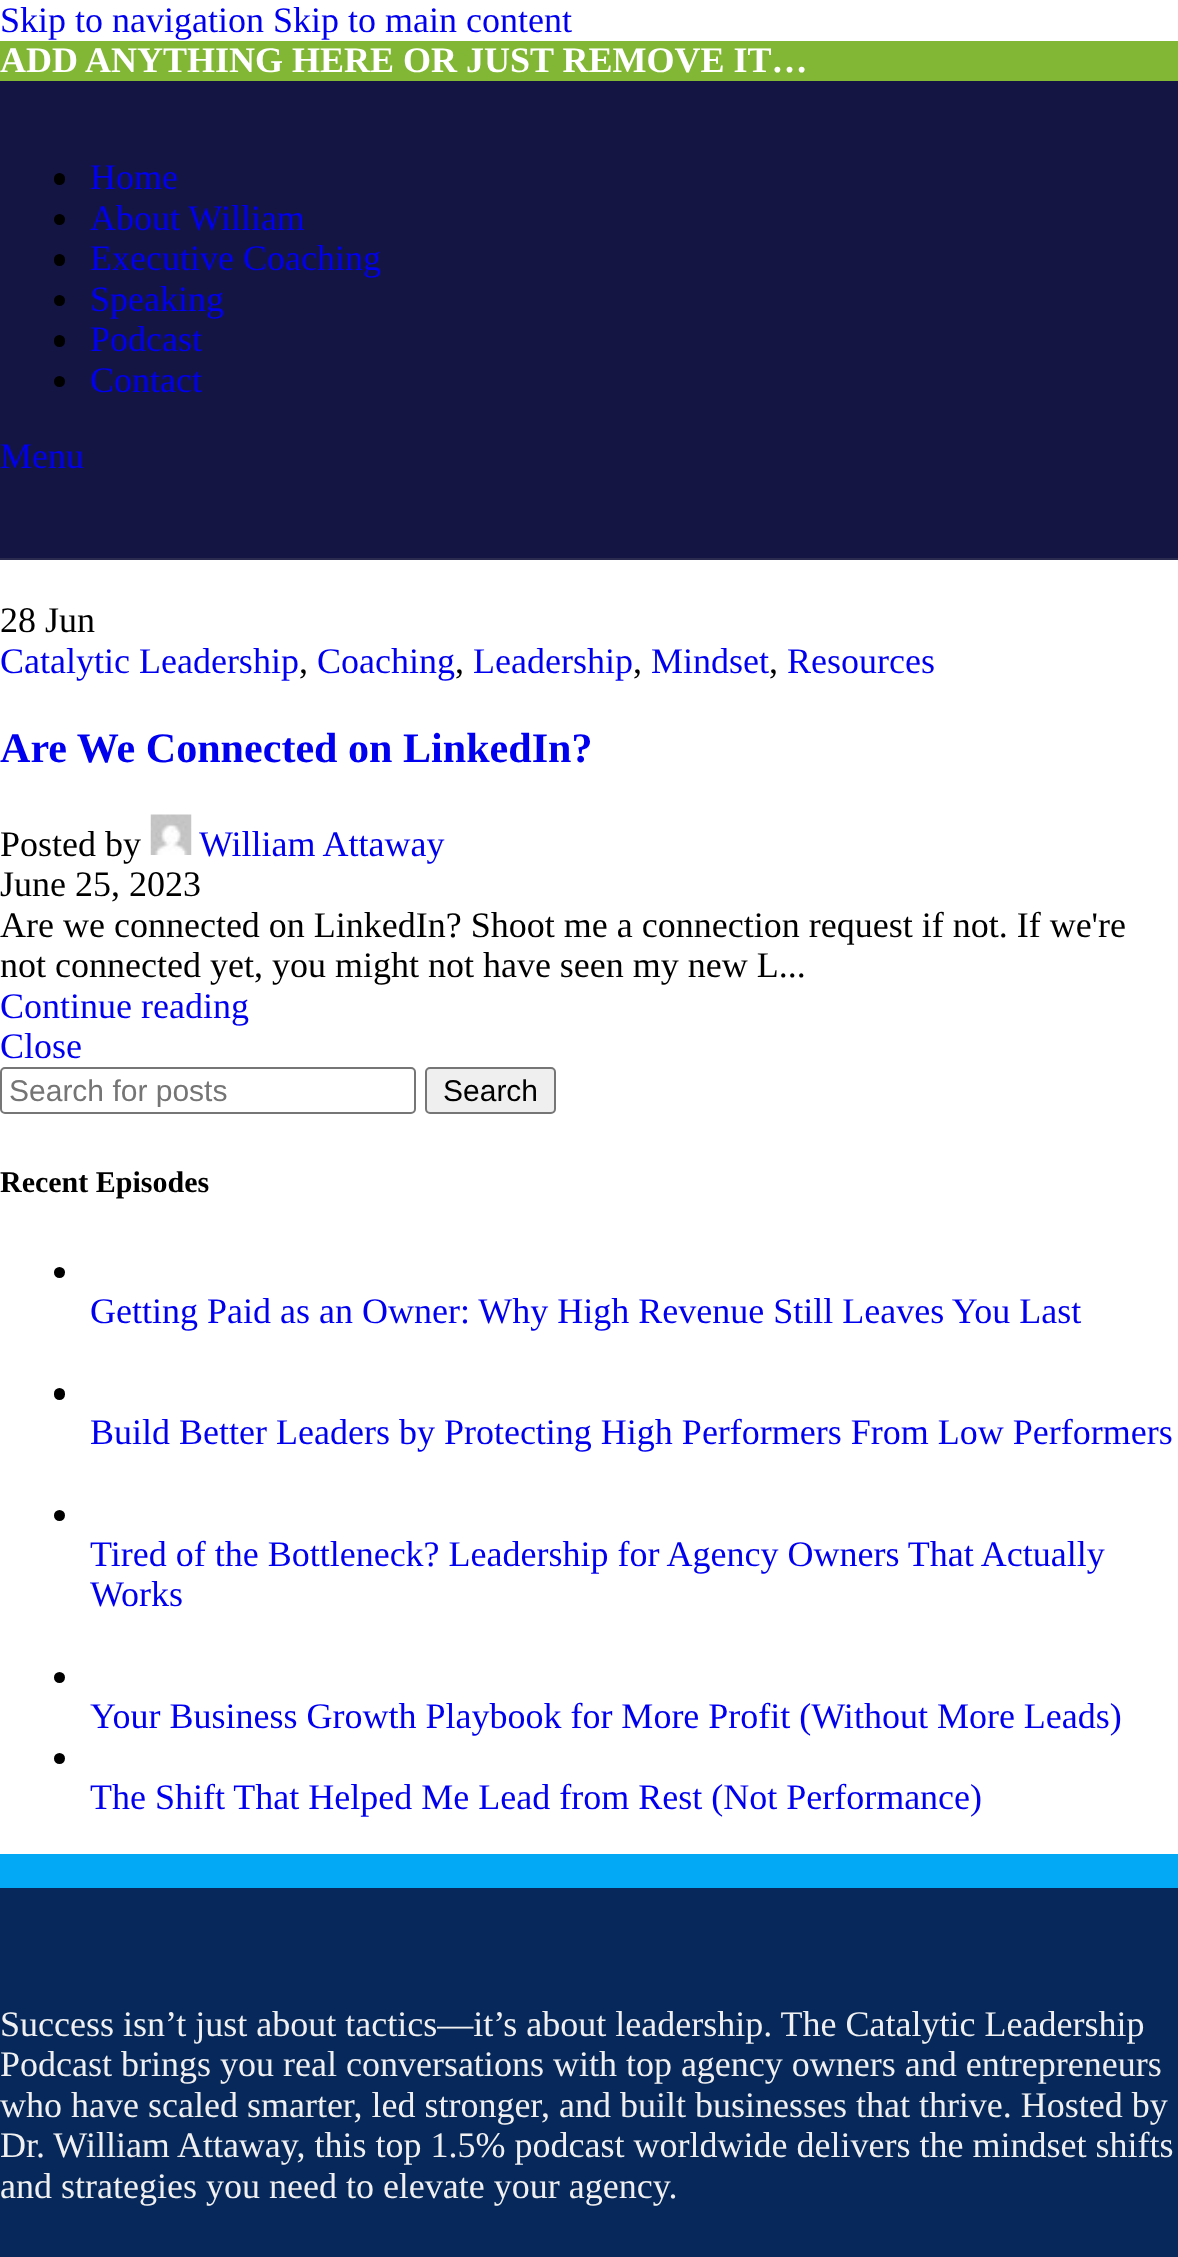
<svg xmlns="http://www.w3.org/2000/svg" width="1178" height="2257">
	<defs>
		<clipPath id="clip1"><rect x="9" y="1073" width="398" height="34" /></clipPath>
	</defs>
	<rect width="100%" height="100%" fill="#FFFFFF" />
	<text x="0" y="32" font-family="Liberation Serif" font-size="36" fill="#0000EE">Skip to navigation Skip to main content</text>
	<rect x="0" y="41" width="1178" height="40" fill="#82B735" />
	<text x="0" y="72" font-family="Liberation Serif" font-size="36" font-weight="700" fill="#FFFFFF">ADD ANYTHING HERE OR JUST REMOVE IT…</text>
	<rect x="0" y="81" width="1178" height="477" fill="#141543" />
	<rect x="0" y="558" width="1178" height="2" fill="#2A2B4F" />
	<rect x="54" y="173" width="11" height="12" rx="5.5" fill="#000000" />
	<text x="90" y="189" font-family="Liberation Serif" font-size="36" fill="#0000EE">Home</text>
	<circle cx="59.5" cy="219.5" r="5.5" fill="#000000" />
	<text x="90" y="230" font-family="Liberation Serif" font-size="36" fill="#0000EE">About William</text>
	<rect x="54" y="254" width="11" height="12" rx="5.5" fill="#000000" />
	<text x="90" y="270" font-family="Liberation Serif" font-size="36" fill="#0000EE">Executive Coaching</text>
	<circle cx="59.5" cy="300.5" r="5.5" fill="#000000" />
	<text x="90" y="311" font-family="Liberation Serif" font-size="36" fill="#0000EE">Speaking</text>
	<rect x="54" y="335" width="11" height="12" rx="5.5" fill="#000000" />
	<text x="90" y="351" font-family="Liberation Serif" font-size="36" fill="#0000EE">Podcast</text>
	<circle cx="59.5" cy="381.5" r="5.5" fill="#000000" />
	<g font-family="Liberation Serif" font-size="36" fill="#0000EE">
		<text x="90" y="392">Contact</text>
		<text x="0" y="468">Menu</text>
	</g>
	<text x="0" y="632" font-family="Liberation Serif" font-size="36" fill="#000000">28 Jun</text>
	<text x="0" y="673" font-family="Liberation Serif" font-size="36" fill="#0000EE">Catalytic Leadership</text>
	<text x="299" y="673" font-family="Liberation Serif" font-size="36" fill="#000000">,</text>
	<text x="317" y="673" font-family="Liberation Serif" font-size="36" fill="#0000EE">Coaching</text>
	<text x="455" y="673" font-family="Liberation Serif" font-size="36" fill="#000000">,</text>
	<text x="473" y="673" font-family="Liberation Serif" font-size="36" fill="#0000EE">Leadership</text>
	<text x="633" y="673" font-family="Liberation Serif" font-size="36" fill="#000000">,</text>
	<text x="651" y="673" font-family="Liberation Serif" font-size="36" fill="#0000EE">Mindset</text>
	<text x="769" y="673" font-family="Liberation Serif" font-size="36" fill="#000000">,</text>
	<text x="787" y="673" font-family="Liberation Serif" font-size="36" fill="#0000EE">Resources</text>
	<text x="0" y="762" font-family="Liberation Serif" font-size="42.1" font-weight="700" fill="#0000EE">Are We Connected on LinkedIn?</text>
	<text x="0" y="856" font-family="Liberation Serif" font-size="36" fill="#000000">Posted by</text>
	<image x="150" y="814" width="42" height="41" href="assets/img1.png" />
	<text x="199" y="856" font-family="Liberation Serif" font-size="36" fill="#0000EE">William Attaway</text>
	<g font-family="Liberation Serif" font-size="36" fill="#000000">
		<text x="0" y="896">June 25, 2023</text>
		<text x="0" y="937">Are we connected on LinkedIn? Shoot me a connection request if not. If we're</text>
		<text x="0" y="977">not connected yet, you might not have seen my new L...</text>
	</g>
	<g font-family="Liberation Serif" font-size="36" fill="#0000EE">
		<text x="0" y="1018">Continue reading</text>
		<text x="0" y="1058">Close</text>
	</g>
	<rect x="1" y="1068" width="414" height="45" rx="4" fill="none" stroke="#767676" stroke-width="2" />
	<g clip-path="url(#clip1)">
		<text x="9" y="1101" font-family="Liberation Sans" font-size="30" fill="#757575">Search for posts</text>
	</g>
	<rect x="426" y="1068" width="129" height="45" rx="4" fill="#EFEFEF" stroke="#767676" stroke-width="2" />
	<text x="443" y="1101" font-family="Liberation Sans" font-size="30" fill="#000000">Search</text>
	<text x="0" y="1192" font-family="Liberation Serif" font-size="30" font-weight="700" fill="#000000">Recent Episodes</text>
	<circle cx="59.5" cy="1272.5" r="5.5" fill="#000000" />
	<text x="90" y="1323" font-family="Liberation Serif" font-size="36" fill="#0000EE">Getting Paid as an Owner: Why High Revenue Still Leaves You Last</text>
	<rect x="54" y="1388" width="11" height="12" rx="5.5" fill="#000000" />
	<text x="90" y="1444" font-family="Liberation Serif" font-size="36" fill="#0000EE">Build Better Leaders by Protecting High Performers From Low Performers</text>
	<circle cx="59.5" cy="1515.5" r="5.5" fill="#000000" />
	<g font-family="Liberation Serif" font-size="36" fill="#0000EE">
		<text x="90" y="1566">Tired of the Bottleneck? Leadership for Agency Owners That Actually</text>
		<text x="90" y="1606">Works</text>
	</g>
	<circle cx="59.5" cy="1677.5" r="5.5" fill="#000000" />
	<text x="90" y="1728" font-family="Liberation Serif" font-size="36" fill="#0000EE">Your Business Growth Playbook for More Profit (Without More Leads)</text>
	<circle cx="59.5" cy="1758.5" r="5.5" fill="#000000" />
	<text x="90" y="1809" font-family="Liberation Serif" font-size="36" fill="#0000EE">The Shift That Helped Me Lead from Rest (Not Performance)</text>
	<rect x="0" y="1888" width="1178" height="369" fill="#06285B" />
	<rect x="0" y="1854" width="1178" height="34" fill="#03A9F4" />
	<g font-family="Liberation Serif" font-size="36" fill="#F0F0F1">
		<text x="0" y="2036">Success isn’t just about tactics—it’s about leadership. The Catalytic Leadership</text>
		<text x="0" y="2076">Podcast brings you real conversations with top agency owners and entrepreneurs</text>
		<text x="0" y="2117">who have scaled smarter, led stronger, and built businesses that thrive. Hosted by</text>
		<text x="0" y="2157">Dr. William Attaway, this top 1.5% podcast worldwide delivers the mindset shifts</text>
		<text x="0" y="2198">and strategies you need to elevate your agency.</text>
	</g>
</svg>
